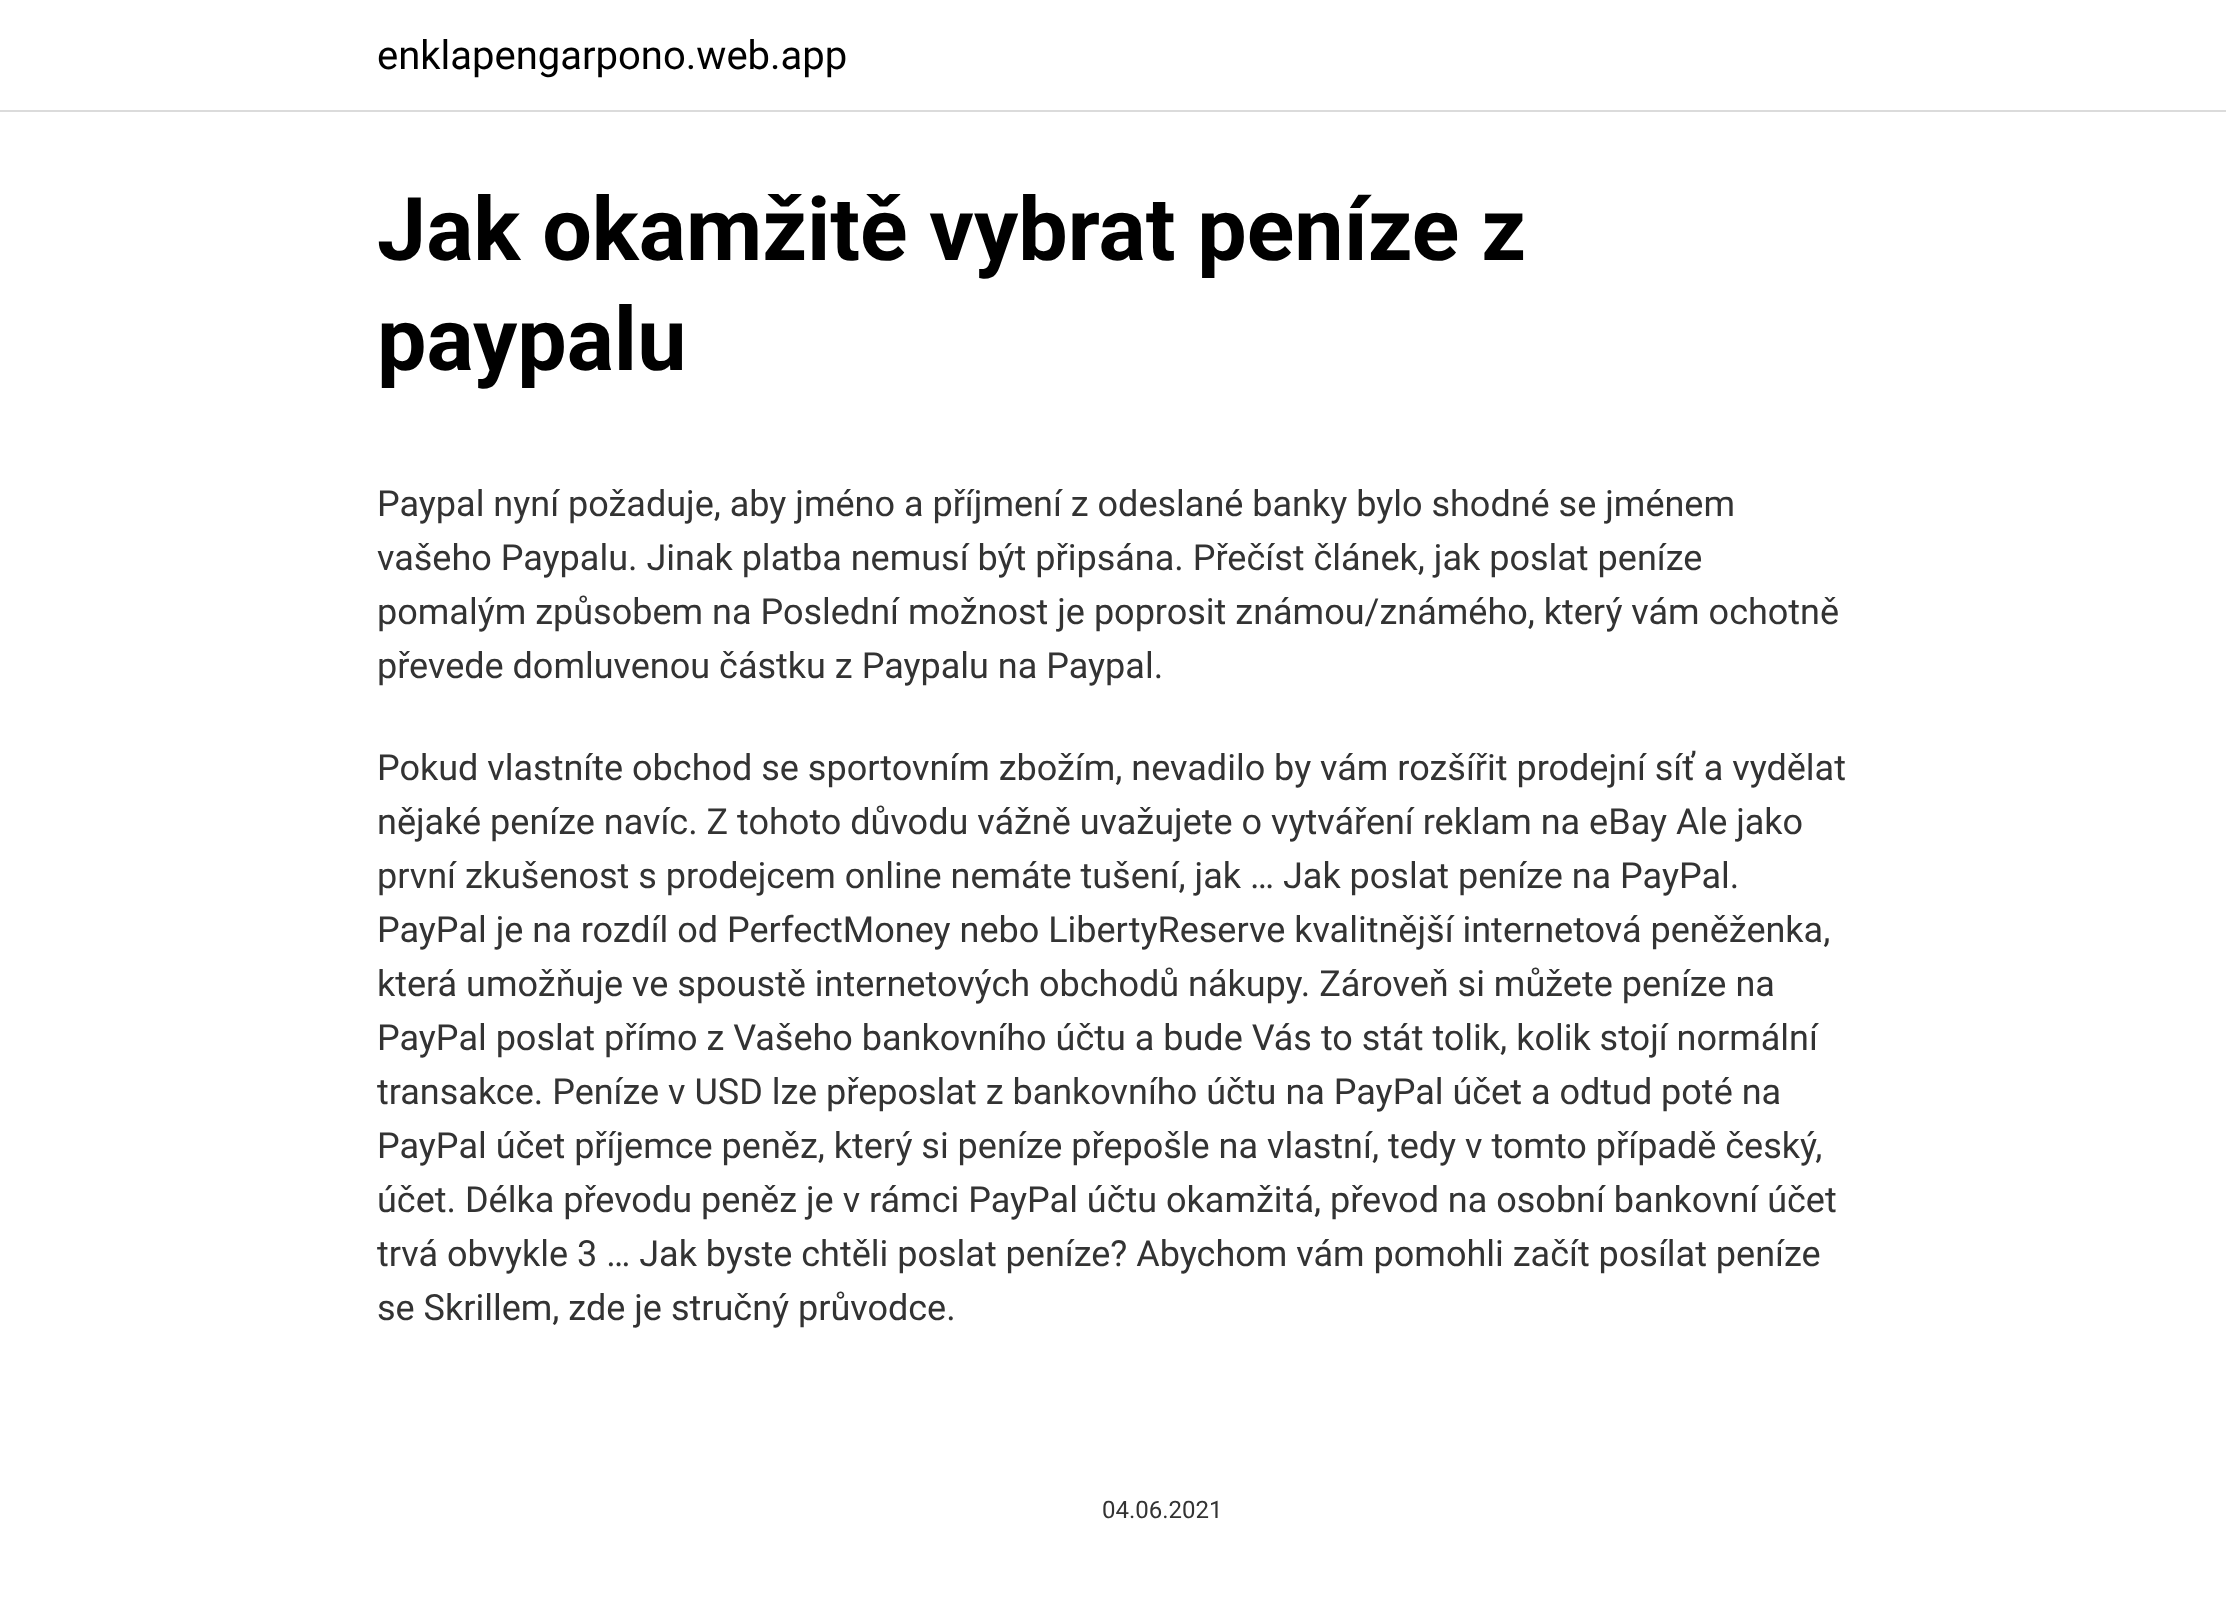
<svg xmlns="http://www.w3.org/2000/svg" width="2226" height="1620">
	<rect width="100%" height="100%" fill="#FFFFFF" />
	<rect x="0" y="110" width="2226" height="2" fill="#DBDBDB" />
	<text x="377" y="69" font-family="Roboto" font-size="40" fill="#000000">enklapengarpono.web.app</text>
	<g font-family="Roboto" font-size="88" font-weight="700" fill="#000000">
		<text x="377" y="260">Jak okamžitě vybrat peníze z</text>
		<text x="377" y="370">paypalu</text>
	</g>
	<g font-family="Roboto" font-size="36" fill="#333333">
		<text x="377" y="516">Paypal nyní požaduje, aby jméno a příjmení z odeslané banky bylo shodné se jménem</text>
		<text x="377" y="570">vašeho Paypalu. Jinak platba nemusí být připsána. Přečíst článek, jak poslat peníze</text>
		<text x="377" y="624">pomalým způsobem na Poslední možnost je poprosit známou/známého, který vám ochotně</text>
		<text x="377" y="678">převede domluvenou částku z Paypalu na Paypal.</text>
		<text x="377" y="780">Pokud vlastníte obchod se sportovním zbožím, nevadilo by vám rozšířit prodejní síť a vydělat</text>
		<text x="377" y="834">nějaké peníze navíc. Z tohoto důvodu vážně uvažujete o vytváření reklam na eBay Ale jako</text>
		<text x="377" y="888">první zkušenost s prodejcem online nemáte tušení, jak … Jak poslat peníze na PayPal.</text>
		<text x="377" y="942">PayPal je na rozdíl od PerfectMoney nebo LibertyReserve kvalitnější internetová peněženka,</text>
		<text x="377" y="996">která umožňuje ve spoustě internetových obchodů nákupy. Zároveň si můžete peníze na</text>
		<text x="377" y="1050">PayPal poslat přímo z Vašeho bankovního účtu a bude Vás to stát tolik, kolik stojí normální</text>
		<text x="377" y="1104">transakce. Peníze v USD lze přeposlat z bankovního účtu na PayPal účet a odtud poté na</text>
		<text x="377" y="1158">PayPal účet příjemce peněz, který si peníze přepošle na vlastní, tedy v tomto případě český,</text>
		<text x="377" y="1212">účet. Délka převodu peněz je v rámci PayPal účtu okamžitá, převod na osobní bankovní účet</text>
		<text x="377" y="1266">trvá obvykle 3 … Jak byste chtěli poslat peníze? Abychom vám pomohli začít posílat peníze</text>
		<text x="377" y="1320">se Skrillem, zde je stručný průvodce.</text>
	</g>
	<text x="1102" y="1518" font-family="Roboto" font-size="24" fill="#333333">04.06.2021</text>
</svg>
